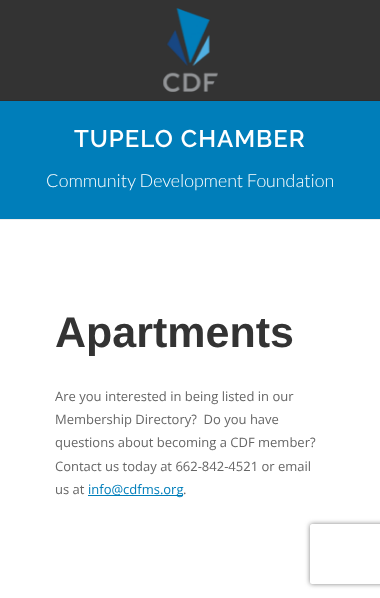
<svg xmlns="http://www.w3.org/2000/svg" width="380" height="598">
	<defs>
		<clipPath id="clip1"><path d="M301 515H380V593H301ZM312 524H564C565 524 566 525 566 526V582C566 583 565 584 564 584H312C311 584 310 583 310 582V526C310 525 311 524 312 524Z" clip-rule="evenodd" /></clipPath>
	</defs>
	<rect width="100%" height="100%" fill="#FFFFFF" />
	<rect x="0" y="0" width="380" height="100" fill="#333333" />
	<rect x="0" y="100" width="380" height="1" fill="#2E2E2E" />
	<image x="163" y="8" width="55" height="84" href="assets/img1.png" />
	<rect x="0" y="101" width="380" height="118" fill="#007EBA" />
	<rect x="0" y="219" width="380" height="1" fill="#EEEEEE" />
	<text x="74" y="147" font-family="Raleway" font-size="24" font-weight="600" letter-spacing="1" fill="#FFFFFF">TUPELO CHAMBER</text>
	<text x="46" y="187" font-family="Lato" font-size="18" font-weight="300" fill="#FFFFFF">Community Development Foundation</text>
	<text x="55" y="347" font-family="Liberation Sans" font-size="43" font-weight="700" fill="#333333">Apartments</text>
	<g font-family="Open Sans" font-size="13" fill="#666666">
		<text x="55" y="401">Are you interested in being listed in our</text>
		<text x="55" y="424" xml:space="preserve">Membership Directory?  Do you have</text>
		<text x="55" y="447">questions about becoming a CDF member?</text>
		<text x="55" y="471">Contact us today at 662-842-4521 or email</text>
		<text x="55" y="494">us at</text>
	</g>
	<rect x="88" y="495" width="95" height="1" fill="#007EBA" />
	<text x="88" y="494" font-family="Open Sans" font-size="13" fill="#007EBA">info@cdfms.org</text>
	<text x="183" y="494" font-family="Open Sans" font-size="13" fill="#666666">.</text>
	<g clip-path="url(#clip1)">
		<rect x="310" y="524" width="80" height="60" rx="2" fill="#808080" filter="blur(2.5px)" />
	</g>
</svg>
